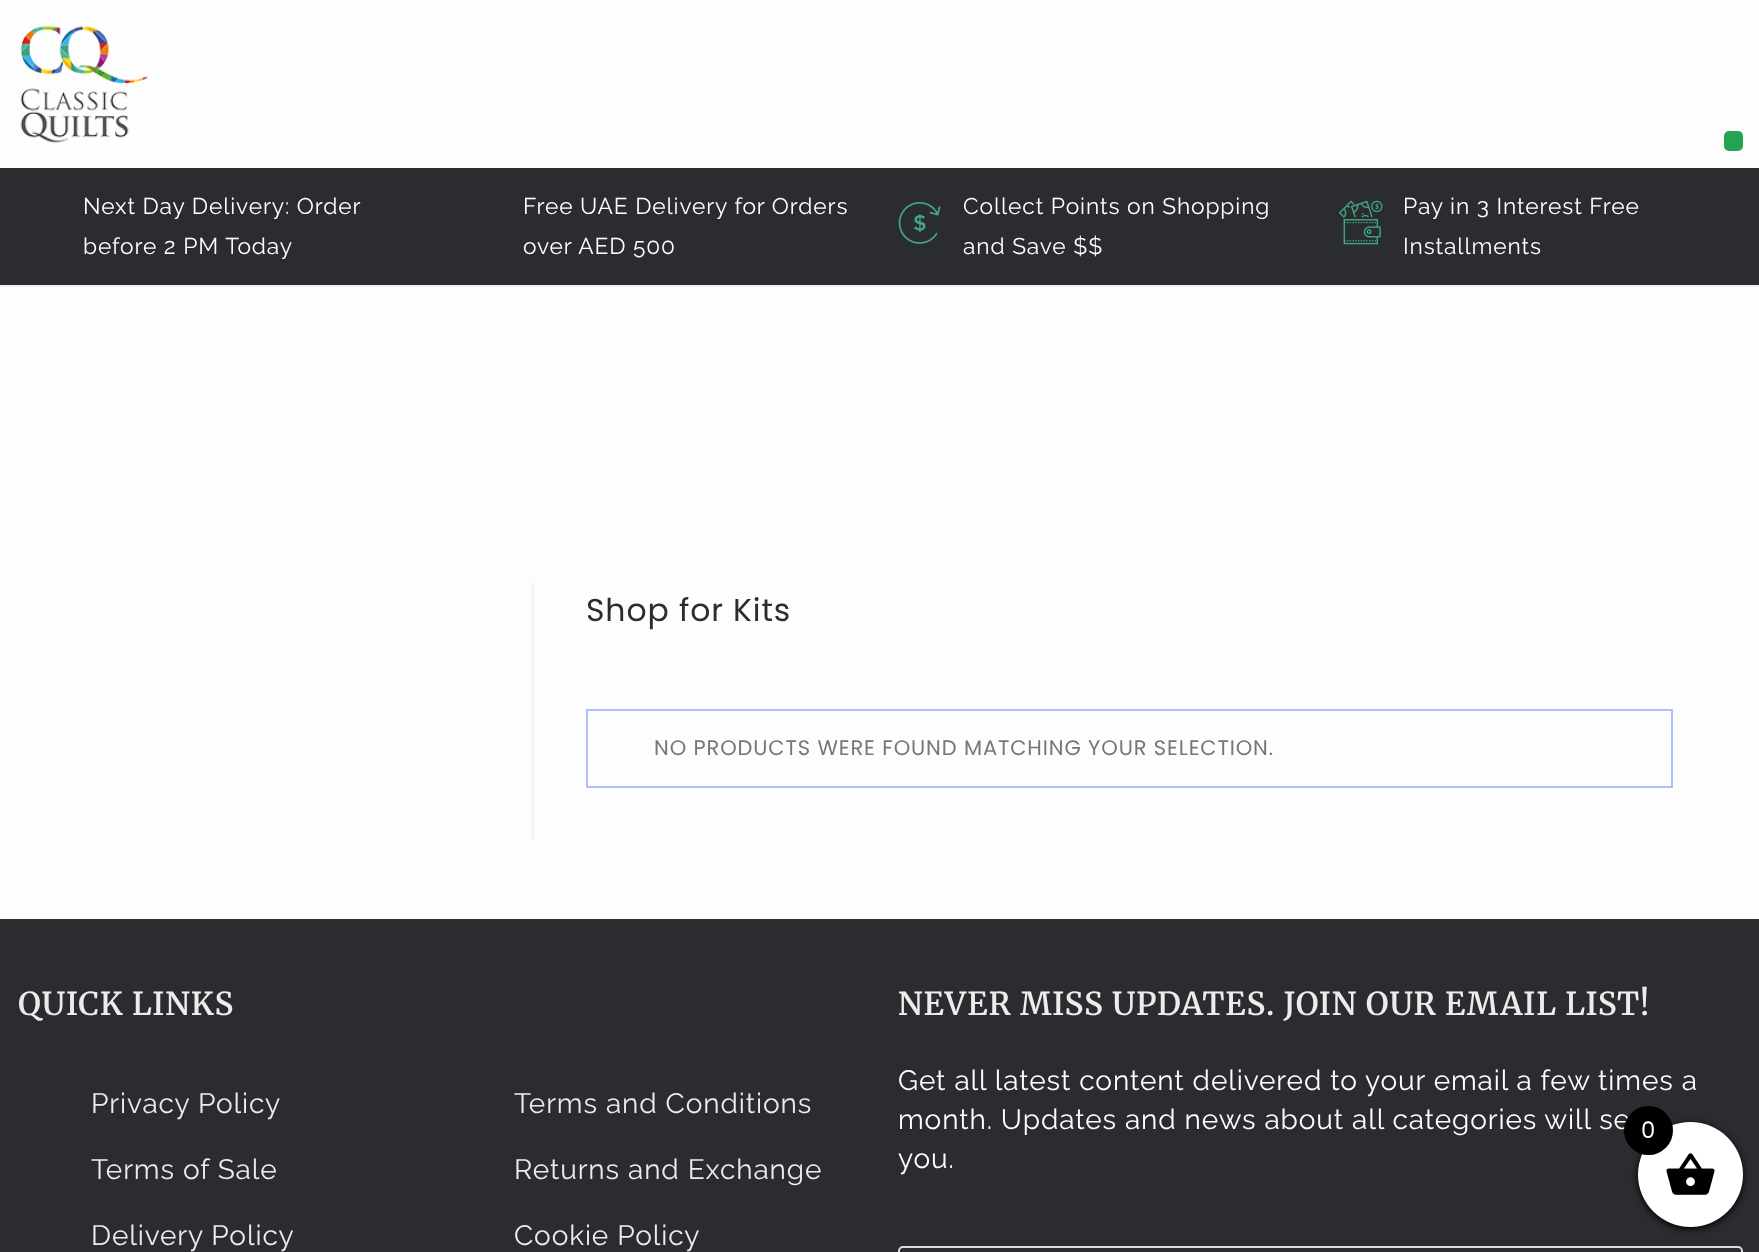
<svg xmlns="http://www.w3.org/2000/svg" width="1759" height="1252">
	<rect width="100%" height="100%" fill="#FDFDFD" />
	<rect x="0" y="285" width="1759" height="2" fill="#F1F1F1" />
	<image x="20" y="26" width="128" height="117" href="assets/img1.png" />
	<rect x="1724" y="131" width="19" height="20" rx="5" fill="#23A455" />
	<rect x="0" y="168" width="1759" height="117" fill="#2A2C2F" />
	<g font-family="Raleway" font-size="22.75" letter-spacing="0.88" fill="#FFFFFF">
		<text x="83" y="214">Next Day Delivery: Order</text>
		<text x="83" y="254">before 2 PM Today</text>
		<text x="523" y="214">Free UAE Delivery for Orders</text>
		<text x="523" y="254">over AED 500</text>
	</g>
	<image x="898" y="202" width="43" height="42" href="assets/img2.png" />
	<g font-family="Raleway" font-size="22.75" letter-spacing="0.88" fill="#FFFFFF">
		<text x="963" y="214">Collect Points on Shopping</text>
		<text x="963" y="254">and Save $$</text>
	</g>
	<image x="1339" y="200" width="44" height="45" href="assets/img3.png" />
	<g font-family="Raleway" font-size="22.75" letter-spacing="0.88" fill="#FFFFFF">
		<text x="1403" y="214">Pay in 3 Interest Free</text>
		<text x="1403" y="254">Installments</text>
	</g>
	<rect x="532" y="583" width="2" height="257" fill="#F1F1F1" />
	<text x="586" y="621" font-family="Poppins" font-size="31.5" letter-spacing="0.88" fill="#2A2C2F">Shop for Kits</text>
	<rect x="587" y="710" width="1085" height="77" fill="none" stroke="#B1BEFD" stroke-width="2" />
	<text x="654" y="755" font-family="Poppins" font-size="21" letter-spacing="0.88" fill="#777777">NO PRODUCTS WERE FOUND MATCHING YOUR SELECTION.</text>
	<rect x="0" y="919" width="1759" height="333" fill="#2A2C2F" />
	<text x="18" y="1015" font-family="Merriweather" font-size="31.5" font-weight="600" letter-spacing="0.88" fill="#ECECEC">QUICK LINKS</text>
	<g font-family="Raleway" font-size="28" letter-spacing="0.88" fill="#ECECEC">
		<text x="91" y="1113">Privacy Policy</text>
		<text x="91" y="1179">Terms of Sale</text>
		<text x="91" y="1245">Delivery Policy</text>
		<text x="514" y="1113">Terms and Conditions</text>
		<text x="514" y="1179">Returns and Exchange</text>
		<text x="514" y="1245">Cookie Policy</text>
	</g>
	<text x="898" y="1015" font-family="Merriweather" font-size="31.5" font-weight="600" letter-spacing="0.88" fill="#ECECEC">NEVER MISS UPDATES. JOIN OUR EMAIL LIST!</text>
	<g font-family="Raleway" font-size="28" letter-spacing="0.88" fill="#FFFFFF">
		<text x="898" y="1090">Get all latest content delivered to your email a few times a</text>
		<text x="898" y="1129">month. Updates and news about all categories will se</text>
		<text x="898" y="1168">you.</text>
	</g>
	<rect x="899" y="1247" width="843" height="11" rx="4" fill="none" stroke="#DDDDDD" stroke-width="2" />
	<rect x="1638" y="1124" width="105" height="105" rx="52.5" fill="#000000" filter="blur(3.5px)" />
	<circle cx="1690.5" cy="1174.5" r="52.5" fill="#FFFFFF" />
	<image x="1666" y="1153" width="49" height="42" href="assets/img4.png" />
	<circle cx="1648.5" cy="1130.5" r="24.5" fill="#000000" />
	<text x="1641" y="1138" font-family="Poppins" font-size="22.75" letter-spacing="0.88" fill="#FFFFFF">0</text>
</svg>
